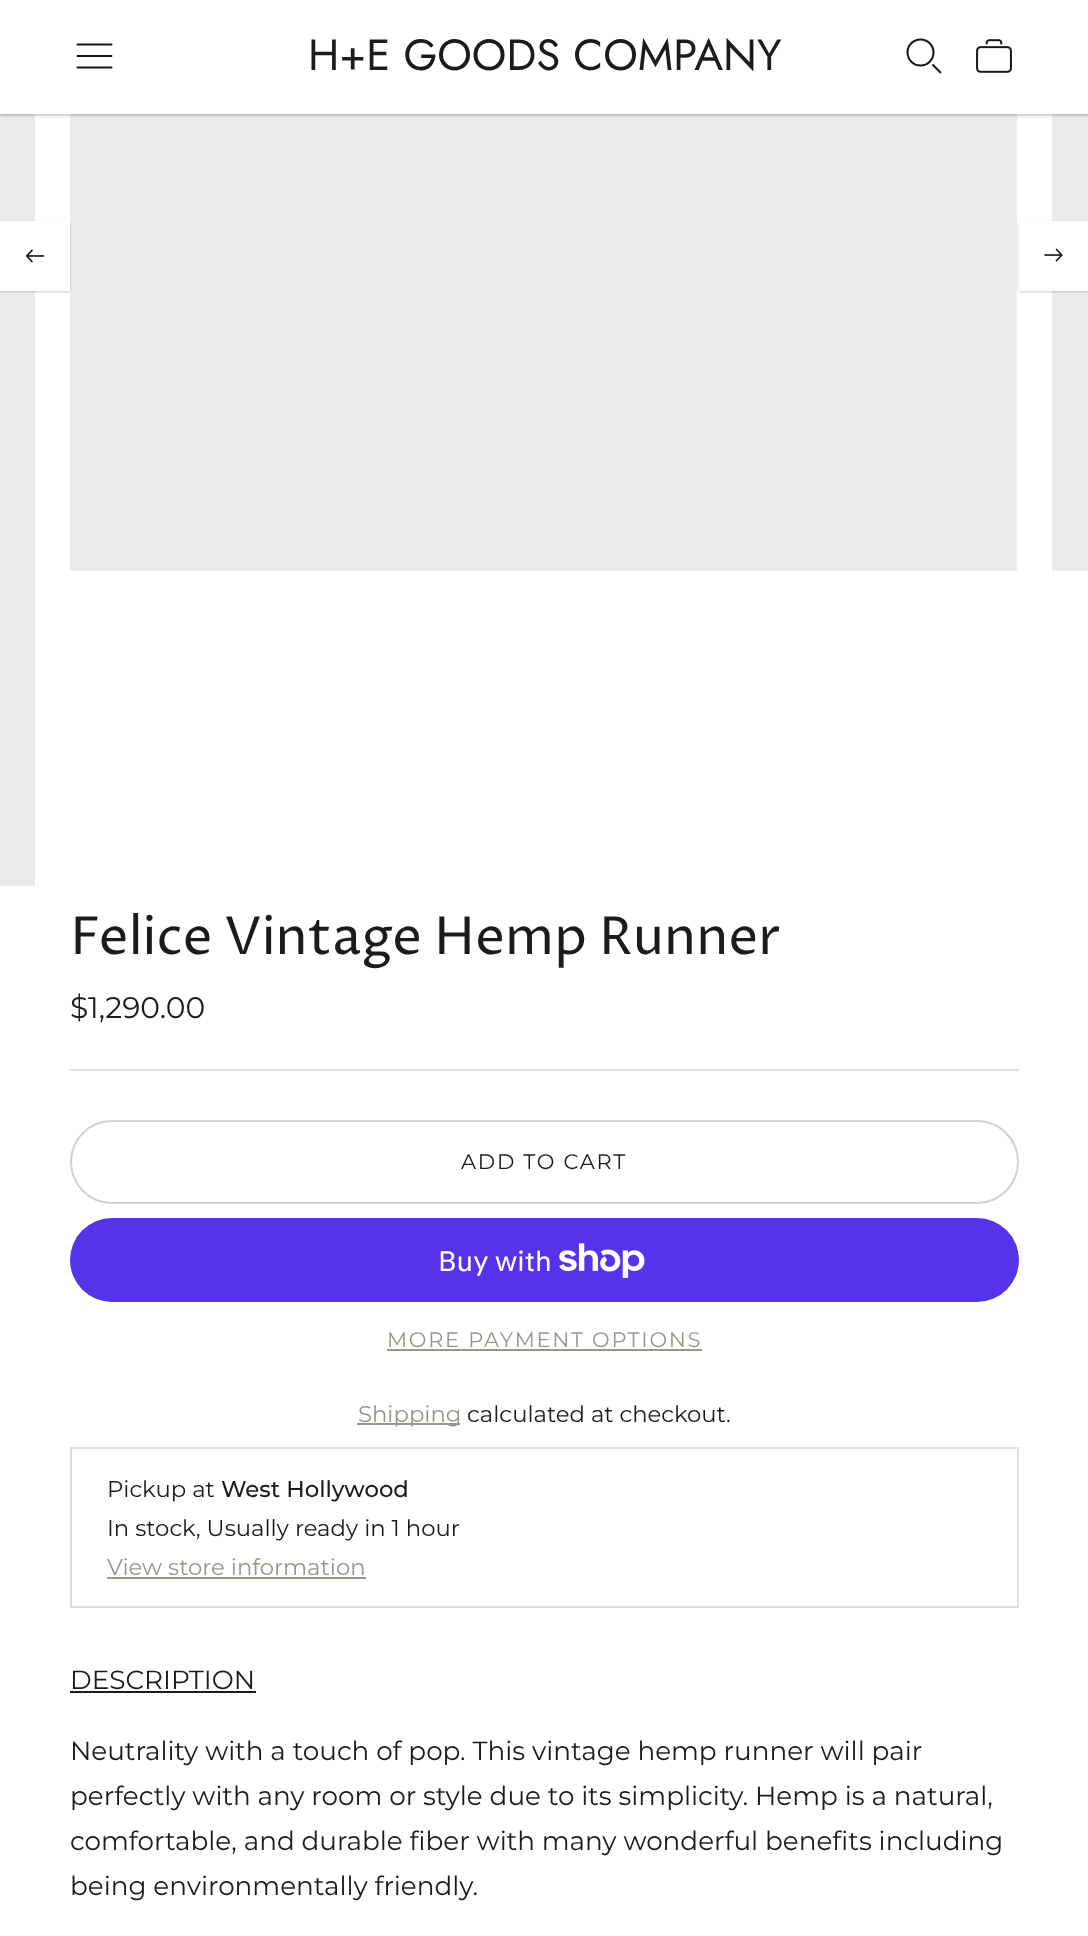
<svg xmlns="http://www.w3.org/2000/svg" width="1088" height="1936">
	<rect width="100%" height="100%" fill="#FFFFFF" />
	<rect x="0" y="114" width="35" height="772" fill="#EBEBEB" />
	<rect x="70" y="114" width="947" height="457" fill="#EBEBEB" />
	<rect x="1052" y="114" width="36" height="457" fill="#EBEBEB" />
	<rect x="0" y="2" width="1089" height="114" fill="#000000" fill-opacity="0.2" filter="blur(1px)" />
	<rect x="0" y="0" width="1088" height="114" fill="#FFFFFF" />
	<path d="M77.5 56H111.5M77.5 44.5H111.5M77.5 67.5H111.5" fill="none" stroke="#171717" stroke-width="2" stroke-linecap="round" stroke-linejoin="round" />
	<text x="308" y="70" font-family="Jost" font-size="43.75" fill="#1B1B1B">H+E GOODS COMPANY</text>
	<circle cx="920.5" cy="52.5" r="13" fill="none" stroke="#171717" stroke-width="2" />
	<path d="M932.5 64.5L941 73" fill="none" stroke="#171717" stroke-width="2" />
	<image x="976" y="39" width="36" height="34" href="assets/img1.png" />
	<rect x="0" y="222" width="70" height="70" fill="#000000" fill-opacity="0.2" filter="blur(1px)" />
	<rect x="0" y="221" width="70" height="70" fill="#FFFFFF" />
	<image x="25" y="249" width="20" height="14" href="assets/img2.png" />
	<rect x="1019" y="222" width="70" height="70" fill="#000000" fill-opacity="0.2" filter="blur(1px)" />
	<rect x="1019" y="221" width="69" height="70" fill="#FFFFFF" />
	<image x="1044" y="248" width="19" height="14" href="assets/img3.png" />
	<text x="70" y="954" font-family="Proza Libre" font-size="52.5" fill="#1B1B1B">Felice Vintage Hemp Runner</text>
	<text x="70" y="1018" font-family="Montserrat" font-size="29.75" fill="#1B1B1B">$1,290.00</text>
	<rect x="70" y="1069" width="949" height="2" fill="#DEDEDE" />
	<rect x="71" y="1121" width="947" height="82" rx="41" fill="none" stroke="#D1D1D1" stroke-width="2" />
	<text x="461" y="1169" font-family="Montserrat" font-size="21" letter-spacing="1.75" fill="#1B1B1B">ADD TO CART</text>
	<rect x="70" y="1218" width="949" height="84" rx="42" fill="#5433EB" />
	<text x="438" y="1271" font-family="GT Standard" font-size="28" fill="#FFFFFF">Buy with</text>
	<image x="559" y="1243" width="86" height="35" href="assets/img4.png" />
	<text x="387" y="1347" font-family="Montserrat" font-size="21" letter-spacing="1.75" fill="#95978C">MORE PAYMENT OPTIONS</text>
	<rect x="387" y="1349" width="315" height="2" fill="#95978C" />
	<rect x="357" y="1423" width="103" height="2" fill="#95978C" />
	<text x="358" y="1422" font-family="Montserrat" font-size="22.75" fill="#95978C">Shipping</text>
	<text x="467" y="1422" font-family="Montserrat" font-size="22.75" fill="#1B1B1B">calculated at checkout.</text>
	<rect x="71" y="1448" width="947" height="159" fill="none" stroke="#DEDEDE" stroke-width="2" />
	<text x="107" y="1497" font-family="Montserrat" font-size="22.75" fill="#1B1B1B">Pickup at</text>
	<text x="221" y="1497" font-family="Montserrat" font-size="22.75" font-weight="500" fill="#1B1B1B">West Hollywood</text>
	<text x="107" y="1536" font-family="Montserrat" font-size="22.75" fill="#1B1B1B">In stock, Usually ready in 1 hour</text>
	<text x="107" y="1575" font-family="Montserrat" font-size="22.75" fill="#95978C">View store information</text>
	<rect x="107" y="1577" width="259" height="2" fill="#95978C" />
	<text x="70" y="1689" font-family="Montserrat" font-size="26.25" fill="#1B1B1B">DESCRIPTION</text>
	<rect x="70" y="1691" width="186" height="2" fill="#1B1B1B" />
	<g font-family="Montserrat" font-size="26.25" fill="#1B1B1B">
		<text x="70" y="1760">Neutrality with a touch of pop. This vintage hemp runner will pair</text>
		<text x="70" y="1805">perfectly with any room or style due to its simplicity. Hemp is a natural,</text>
		<text x="70" y="1850">comfortable, and durable fiber with many wonderful benefits including</text>
		<text x="70" y="1895">being environmentally friendly.</text>
	</g>
</svg>
